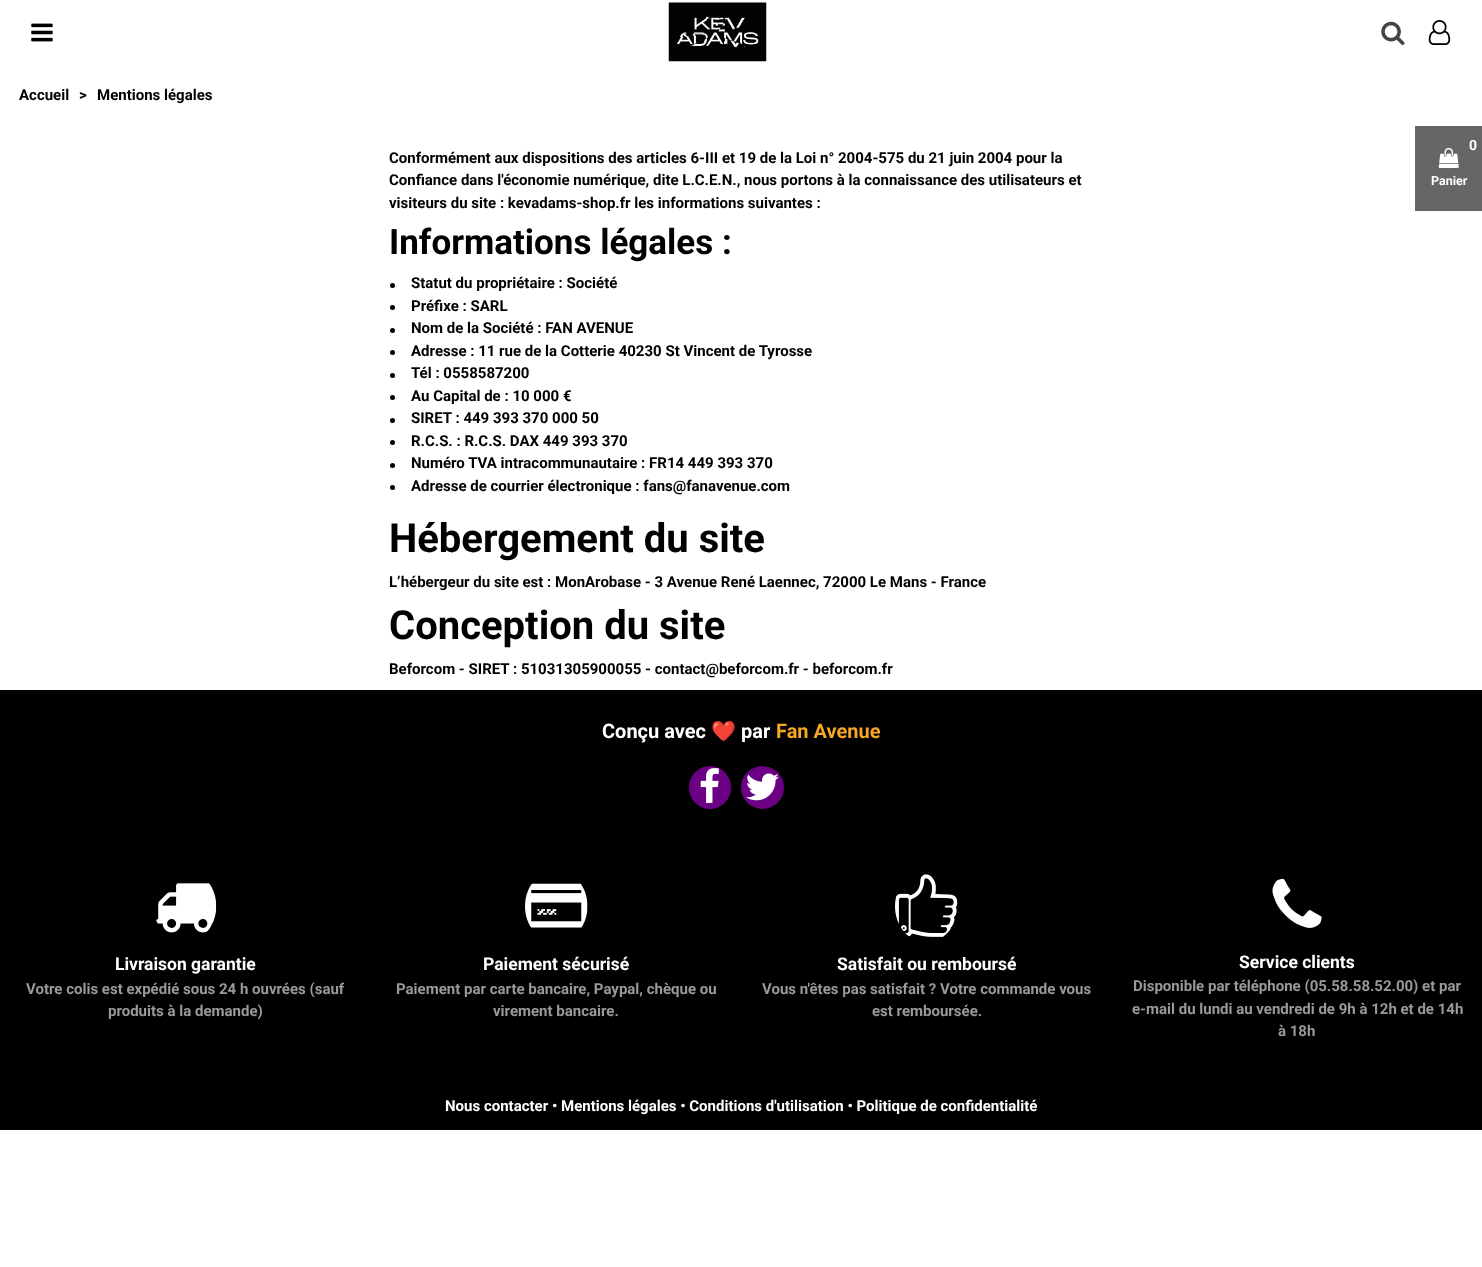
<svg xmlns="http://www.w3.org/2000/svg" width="1482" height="1267">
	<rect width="100%" height="100%" fill="#FFFFFF" />
	<image x="31" y="23" width="22" height="19" href="assets/img1.png" />
	<image x="668" y="2" width="99" height="60" href="assets/img2.png" />
	<image x="1381" y="21" width="24" height="24" href="assets/img3.png" />
	<image x="1428" y="20" width="23" height="25" href="assets/img4.png" />
	<g font-family="Roboto" font-size="15" font-weight="700" fill="#000000">
		<text x="19" y="100">Accueil</text>
		<text x="79" y="100">&gt;</text>
		<text x="97" y="100">Mentions légales</text>
		<text x="389" y="163">Conformément aux dispositions des articles 6-III et 19 de la Loi n° 2004-575 du 21 juin 2004 pour la</text>
		<text x="389" y="185">Confiance dans l'économie numérique, dite L.C.E.N., nous portons à la connaissance des utilisateurs et</text>
		<text x="389" y="208">visiteurs du site : kevadams-shop.fr les informations suivantes :</text>
	</g>
	<text x="389" y="254" font-family="Roboto" font-size="35" font-weight="700" fill="#000000">Informations légales :</text>
	<circle cx="392.5" cy="285.5" r="2.5" fill="#000000" />
	<text x="411" y="288" font-family="Roboto" font-size="15" font-weight="700" fill="#000000">Statut du propriétaire : Société</text>
	<circle cx="392.5" cy="307.5" r="2.5" fill="#000000" />
	<text x="411" y="311" font-family="Roboto" font-size="15" font-weight="700" fill="#000000">Préfixe : SARL</text>
	<circle cx="392.5" cy="330.5" r="2.5" fill="#000000" />
	<text x="411" y="333" font-family="Roboto" font-size="15" font-weight="700" fill="#000000">Nom de la Société : FAN AVENUE</text>
	<circle cx="392.5" cy="352.5" r="2.5" fill="#000000" />
	<text x="411" y="356" font-family="Roboto" font-size="15" font-weight="700" fill="#000000">Adresse : 11 rue de la Cotterie 40230 St Vincent de Tyrosse</text>
	<circle cx="392.5" cy="375.5" r="2.5" fill="#000000" />
	<text x="411" y="378" font-family="Roboto" font-size="15" font-weight="700" fill="#000000">Tél : 0558587200</text>
	<circle cx="392.5" cy="397.5" r="2.5" fill="#000000" />
	<text x="411" y="401" font-family="Roboto" font-size="15" font-weight="700" fill="#000000">Au Capital de : 10 000 €</text>
	<circle cx="392.5" cy="420.5" r="2.5" fill="#000000" />
	<text x="411" y="423" font-family="Roboto" font-size="15" font-weight="700" fill="#000000">SIRET : 449 393 370 000 50</text>
	<circle cx="392.5" cy="442.5" r="2.5" fill="#000000" />
	<text x="411" y="446" font-family="Roboto" font-size="15" font-weight="700" fill="#000000">R.C.S. : R.C.S. DAX 449 393 370</text>
	<circle cx="392.5" cy="465.5" r="2.5" fill="#000000" />
	<text x="411" y="468" font-family="Roboto" font-size="15" font-weight="700" fill="#000000">Numéro TVA intracommunautaire : FR14 449 393 370</text>
	<circle cx="392.5" cy="487.5" r="2.5" fill="#000000" />
	<text x="411" y="491" font-family="Roboto" font-size="15" font-weight="700" fill="#000000">Adresse de courrier électronique : fans@fanavenue.com</text>
	<text x="389" y="552" font-family="Roboto" font-size="40" font-weight="700" fill="#000000">Hébergement du site</text>
	<text x="389" y="587" font-family="Roboto" font-size="15" font-weight="700" fill="#000000">L’hébergeur du site est : MonArobase - 3 Avenue René Laennec, 72000 Le Mans - France</text>
	<text x="389" y="639" font-family="Roboto" font-size="40" font-weight="700" fill="#000000">Conception du site</text>
	<text x="389" y="674" font-family="Roboto" font-size="15" font-weight="700" fill="#000000">Beforcom - SIRET : 51031305900055 - contact@beforcom.fr - beforcom.fr</text>
	<rect x="0" y="690" width="1482" height="440" fill="#000000" />
	<text x="602" y="738" font-family="Roboto" font-size="20" font-weight="700" fill="#FFFFFF">Conçu avec</text>
	<text x="711" y="738" font-family="Noto Color Emoji" font-size="20" font-weight="700" fill="#FFFFFF">❤️</text>
	<text x="741" y="738" font-family="Roboto" font-size="20" font-weight="700" fill="#FFFFFF">par</text>
	<text x="776" y="738" font-family="Roboto" font-size="20" font-weight="700" fill="#F5A623">Fan Avenue</text>
	<rect x="689" y="766" width="42" height="43" rx="21" fill="#6B0085" />
	<image x="700" y="768" width="19" height="35" href="assets/img5.png" />
	<circle cx="762.5" cy="787.5" r="21.5" fill="#6B0085" />
	<image x="746" y="773" width="33" height="28" href="assets/img6.png" />
	<image x="156" y="883" width="61" height="50" href="assets/img7.png" />
	<text x="115" y="970" font-family="Roboto" font-size="17.5" font-weight="700" fill="#FFFFFF">Livraison garantie</text>
	<g font-family="Roboto" font-size="15" font-weight="700" fill="#999999">
		<text x="26" y="994">Votre colis est expédié sous 24 h ouvrées (sauf</text>
		<text x="108" y="1016">produits à la demande)</text>
	</g>
	<image x="525" y="883" width="63" height="45" href="assets/img8.png" />
	<text x="483" y="970" font-family="Roboto" font-size="17.5" font-weight="700" fill="#FFFFFF">Paiement sécurisé</text>
	<g font-family="Roboto" font-size="15" font-weight="700" fill="#999999">
		<text x="396" y="994">Paiement par carte bancaire, Paypal, chèque ou</text>
		<text x="493" y="1016">virement bancaire.</text>
	</g>
	<image x="895" y="874" width="63" height="63" href="assets/img9.png" />
	<text x="837" y="970" font-family="Roboto" font-size="17.5" font-weight="700" fill="#FFFFFF">Satisfait ou remboursé</text>
	<g font-family="Roboto" font-size="15" font-weight="700" fill="#999999">
		<text x="762" y="994">Vous n'êtes pas satisfait ? Votre commande vous</text>
		<text x="872" y="1016">est remboursée.</text>
	</g>
	<image x="1272" y="878" width="50" height="50" href="assets/img10.png" />
	<text x="1239" y="968" font-family="Roboto" font-size="17.5" font-weight="700" fill="#FFFFFF">Service clients</text>
	<g font-family="Roboto" font-size="15" font-weight="700" fill="#999999">
		<text x="1133" y="991">Disponible par téléphone (05.58.58.52.00) et par</text>
		<text x="1132" y="1014">e-mail du lundi au vendredi de 9h à 12h et de 14h</text>
		<text x="1278" y="1036">à 18h</text>
	</g>
	<text x="445" y="1111" font-family="Roboto" font-size="15" font-weight="700" fill="#FFFFFF">Nous contacter • Mentions légales • Conditions d'utilisation • Politique de confidentialité</text>
	<rect x="1415" y="126" width="67" height="85" fill="#666666" />
	<text x="1469" y="150" font-family="Roboto" font-size="14" font-weight="700" fill="#FFFFFF">0</text>
	<image x="1438" y="148" width="21" height="20" href="assets/img11.png" />
	<text x="1431" y="185" font-family="Roboto" font-size="12.5" font-weight="700" fill="#FFFFFF">Panier</text>
</svg>
